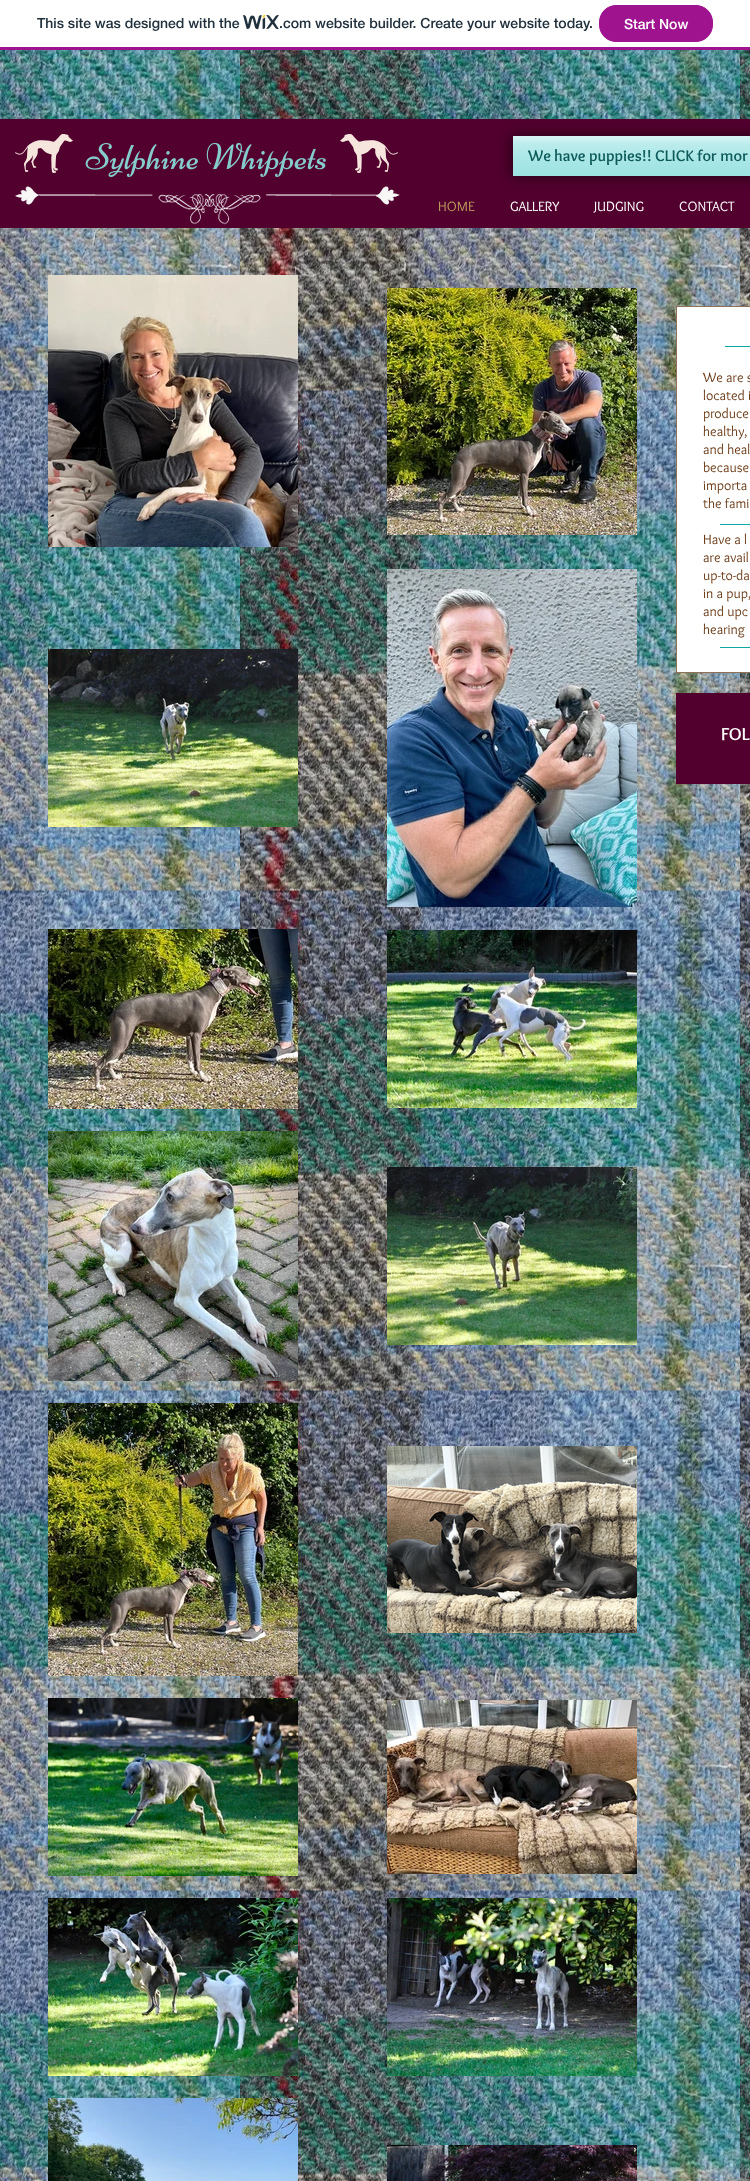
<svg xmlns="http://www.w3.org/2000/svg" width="750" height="2181">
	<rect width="100%" height="100%" fill="#FFFFFF" />
	<rect x="0" y="47" width="750" height="3" fill="#A0138E" />
	<text x="37" y="28" font-family="'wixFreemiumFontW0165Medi'" font-size="14" font-weight="500" fill="#20303C">This site was designed with the</text>
	<image x="243" y="15" width="36" height="15" href="assets/img1.png" />
	<text x="279" y="28" font-family="'wixFreemiumFontW0165Medi'" font-size="14" font-weight="500" fill="#20303C">.com website builder. Create your website today.</text>
	<rect x="599.5" y="5.5" width="113" height="36" rx="16.5" fill="#A0138E" stroke="#A0138E" />
	<text x="624" y="29" font-family="'wixFreemiumFontW0165Medi'" font-size="14" font-weight="500" fill="#FFFFFF">Start Now</text>
	<image x="0" y="50" width="750" height="2131" href="assets/img2.png" />
	<rect x="0" y="119" width="750" height="109" fill="#52002E" />
	<image x="15" y="134" width="58" height="39" href="assets/img3.png" />
	<image x="85" y="143" width="241" height="34" href="assets/img4.png" />
	<image x="340" y="134" width="58" height="39" href="assets/img5.png" />
	<rect x="512" y="136" width="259" height="40" fill="#000000" fill-opacity="0.6" filter="blur(7px)" />
	<rect x="513" y="136" width="237" height="40" fill="#99E2E2" />
	<image x="513" y="136" width="237" height="40" href="assets/img6.png" />
	<text x="528" y="161" font-family="Overlock" font-size="16" font-weight="700" fill="#0F5B5B">We have puppies!! CLICK for mor</text>
	<image x="15" y="186" width="385" height="39" href="assets/img7.png" />
	<text x="438" y="211" font-family="Overlock" font-size="14" fill="#BC9B5D">HOME</text>
	<g font-family="Overlock" font-size="14" fill="#FFFFFF">
		<text x="510" y="211">GALLERY</text>
		<text x="594" y="211">JUDGING</text>
		<text x="679" y="211">CONTACT</text>
	</g>
	<image x="48" y="275" width="250" height="272" href="assets/img8.png" />
	<image x="387" y="288" width="250" height="247" href="assets/img9.png" />
	<image x="48" y="649" width="250" height="178" href="assets/img10.png" />
	<image x="387" y="569" width="250" height="338" href="assets/img11.png" />
	<image x="48" y="929" width="250" height="180" href="assets/img12.png" />
	<image x="387" y="930" width="250" height="178" href="assets/img13.png" />
	<image x="48" y="1131" width="250" height="250" href="assets/img14.png" />
	<image x="387" y="1167" width="250" height="178" href="assets/img15.png" />
	<image x="48" y="1403" width="250" height="273" href="assets/img16.png" />
	<image x="387" y="1446" width="250" height="187" href="assets/img17.png" />
	<image x="48" y="1698" width="250" height="178" href="assets/img18.png" />
	<image x="387" y="1700" width="250" height="174" href="assets/img19.png" />
	<image x="48" y="1898" width="250" height="178" href="assets/img20.png" />
	<image x="387" y="1898" width="250" height="178" href="assets/img21.png" />
	<image x="48" y="2098" width="250" height="83" href="assets/img22.png" />
	<image x="387" y="2145" width="250" height="36" href="assets/img23.png" />
	<rect x="676.5" y="306.5" width="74" height="366" fill="#FFFFFF" stroke="#907057" />
	<rect x="725" y="346" width="25" height="1" fill="#0FA8A1" />
	<g font-family="Overlock" font-size="14" fill="#6B3B17">
		<text x="703" y="382">We are s</text>
		<text x="703" y="400">located i</text>
		<text x="703" y="418">produce</text>
		<text x="703" y="436">healthy,</text>
		<text x="703" y="454">and heal</text>
		<text x="703" y="472">because</text>
		<text x="703" y="490">importa</text>
		<text x="703" y="508">the fami</text>
		<text x="703" y="544">Have a l</text>
		<text x="703" y="562">are avail</text>
		<text x="703" y="580">up-to-da</text>
		<text x="703" y="598">in a pup,</text>
		<text x="703" y="616">and upc</text>
		<text x="703" y="634">hearing</text>
	</g>
	<rect x="720" y="524" width="30" height="1" fill="#0FA8A1" />
	<rect x="720" y="647" width="30" height="1" fill="#0FA8A1" />
	<rect x="676" y="693" width="74" height="91" fill="#52002E" />
	<text x="721" y="740" font-family="Overlock" font-size="18" font-weight="700" fill="#FFFFFF">FOL</text>
</svg>
